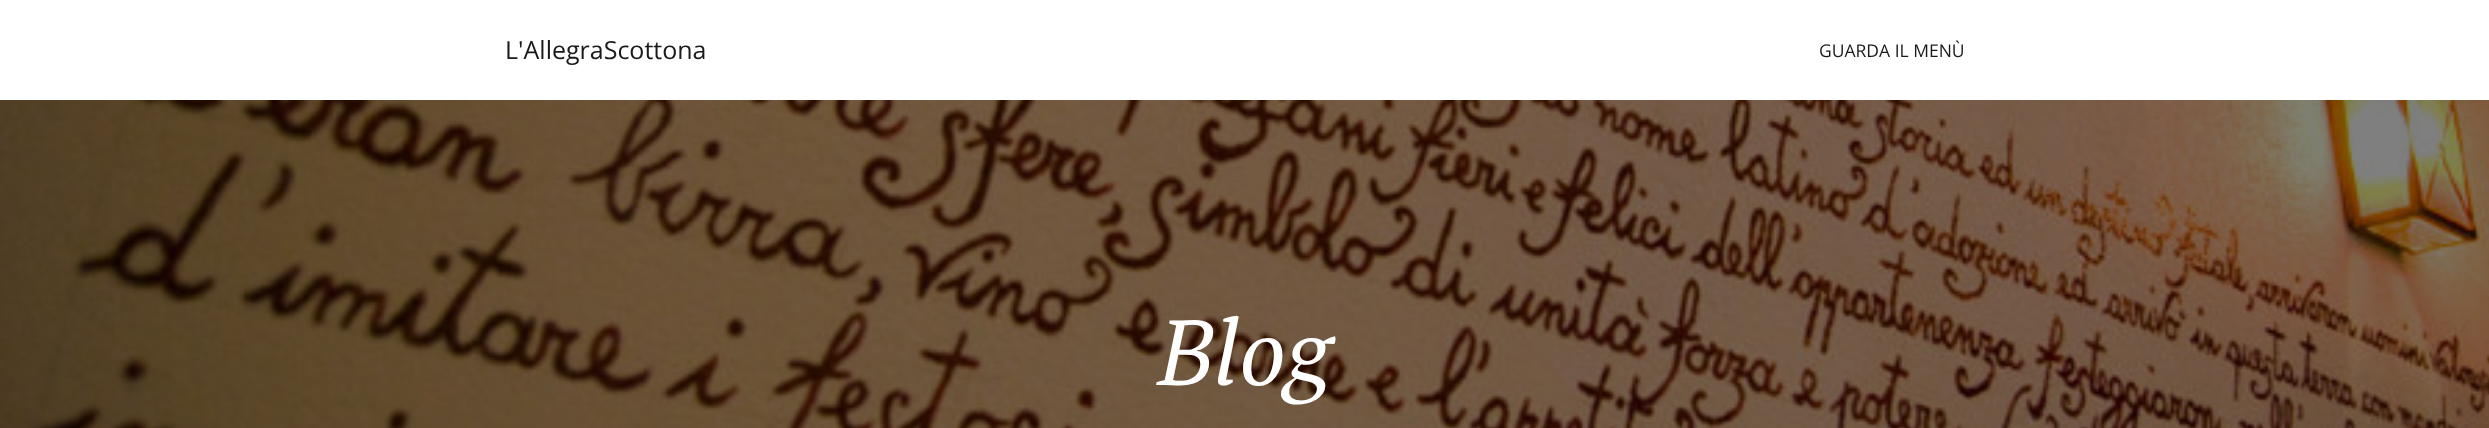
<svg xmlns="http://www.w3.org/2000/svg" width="2489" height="428">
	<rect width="100%" height="100%" fill="#FFFFFF" />
	<text x="505" y="59" font-family="Open Sans" font-size="25" fill="#1A1A1A">L'AllegraScottona</text>
	<text x="1819" y="57" font-family="Open Sans" font-size="17.5" fill="#1A1A1A">GUARDA IL MENÙ</text>
	<image x="0" y="100" width="2489" height="328" href="assets/img1.png" />
	<text x="1158" y="385" font-family="PT Serif" font-size="92" font-style="italic" fill="#FFFFFF">Blog</text>
</svg>
